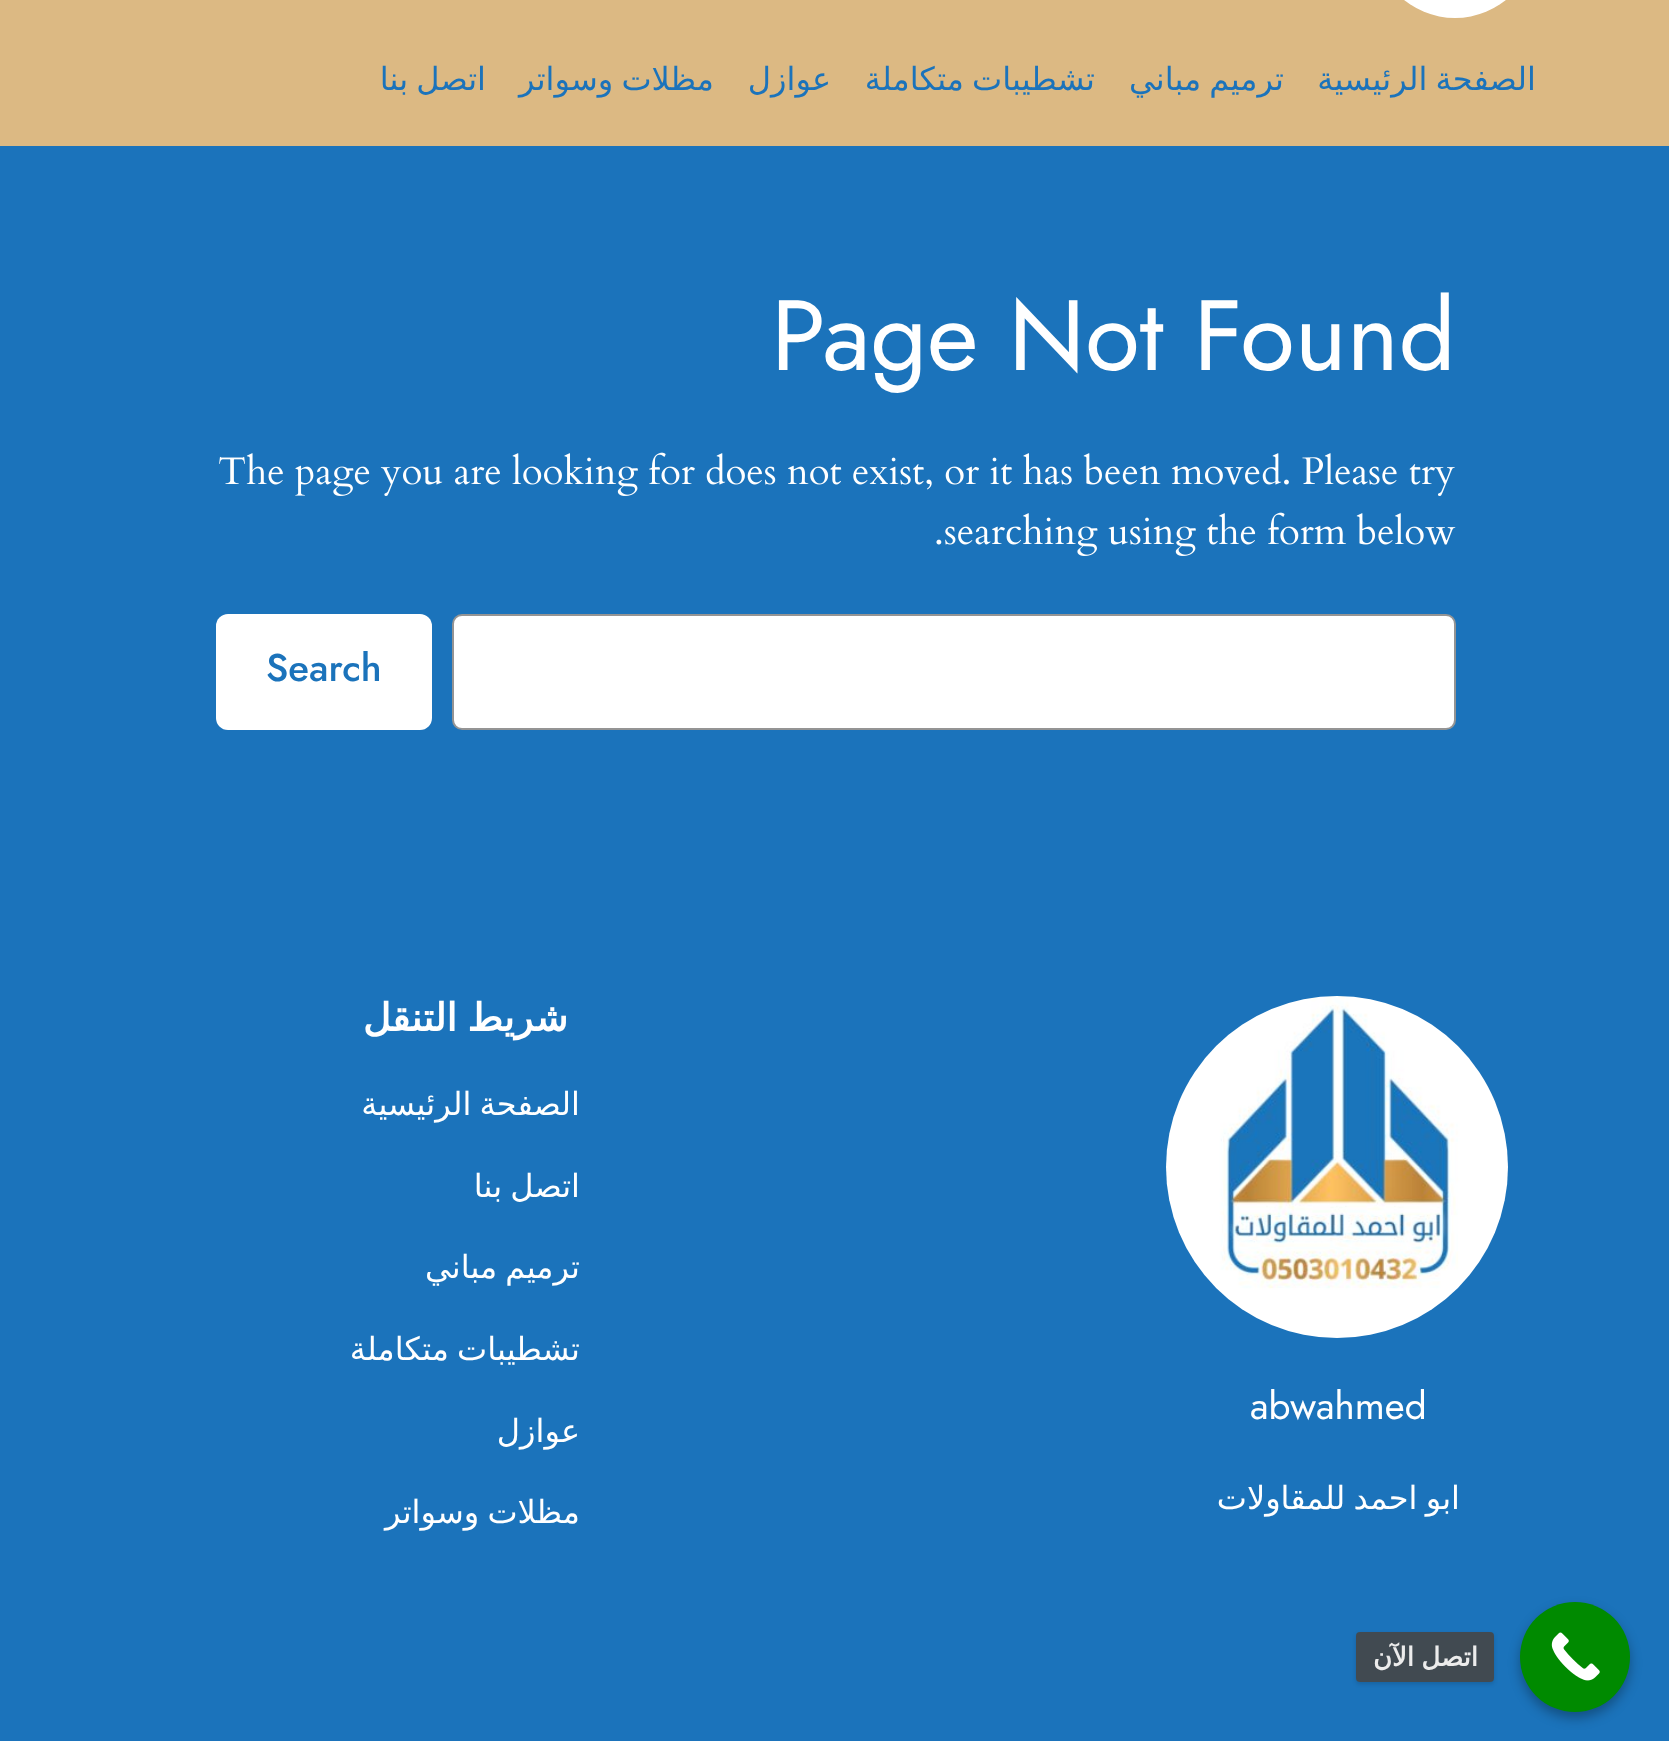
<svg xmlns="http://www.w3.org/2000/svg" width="1669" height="1741">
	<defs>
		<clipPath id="clip1"><path d="M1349 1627H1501V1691H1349ZM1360 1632H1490C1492 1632 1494 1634 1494 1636V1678C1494 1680 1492 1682 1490 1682H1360C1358 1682 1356 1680 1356 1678V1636C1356 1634 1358 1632 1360 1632Z" clip-rule="evenodd" /></clipPath>
	</defs>
	<rect width="100%" height="100%" fill="#1B73BB" />
	<rect x="0" y="0" width="1669" height="146" fill="#DCB983" />
	<image x="1404" y="0" width="102" height="18" href="assets/img1.png" />
	<g font-family="DejaVu Sans" font-size="32" direction="rtl" fill="#1B73BB">
		<text x="1536" y="90" word-spacing="-2">الصفحة الرئيسية</text>
		<text x="1284" y="90" word-spacing="-2">ترميم مباني</text>
		<text x="1095" y="90" word-spacing="-2">تشطيبات متكاملة</text>
		<text x="831" y="90">عوازل</text>
		<text x="714" y="90" word-spacing="-2">مظلات وسواتر</text>
		<text x="486" y="90" word-spacing="-2">اتصل بنا</text>
	</g>
	<text x="771" y="370" font-family="Jost" font-size="99.5" fill="#FFFFFF">Page Not Found</text>
	<image x="219" y="452" width="1236" height="44" href="assets/img2.png" />
	<image x="945" y="512" width="511" height="44" href="assets/img3.png" />
	<image x="936" y="539" width="6" height="6" href="assets/img4.png" />
	<rect x="453" y="615" width="1002" height="114" rx="9" fill="#FFFFFF" stroke="#949494" stroke-width="2" />
	<rect x="216" y="614" width="216" height="116" rx="12" fill="#FFFFFF" />
	<text x="266" y="681" font-family="Jost" font-size="38.5" font-weight="500" fill="#1B73BB">Search</text>
	<image x="1166" y="996" width="342" height="342" href="assets/img5.png" />
	<text x="1250" y="1419" font-family="Jost" font-size="38.5" fill="#FFFFFF">abwahmed</text>
	<text x="1460" y="1509" word-spacing="-2" font-family="DejaVu Sans" font-size="32" direction="rtl" fill="#FFFFFF">ابو احمد للمقاولات</text>
	<text x="568" y="1031" word-spacing="-2" font-family="DejaVu Sans" font-size="38.5" font-weight="700" direction="rtl" fill="#FFFFFF">شريط التنقل</text>
	<g font-family="DejaVu Sans" font-size="32" direction="rtl" fill="#FFFFFF">
		<text x="580" y="1115" word-spacing="-2">الصفحة الرئيسية</text>
		<text x="580" y="1197" word-spacing="-2">اتصل بنا</text>
		<text x="580" y="1278" word-spacing="-2">ترميم مباني</text>
		<text x="580" y="1360" word-spacing="-2">تشطيبات متكاملة</text>
		<text x="580" y="1442">عوازل</text>
		<text x="580" y="1523" word-spacing="-2">مظلات وسواتر</text>
	</g>
	<rect x="1520" y="1608" width="110" height="110" rx="55" fill="#000000" fill-opacity="0.3" filter="blur(6px)" />
	<circle cx="1575" cy="1657" r="55" fill="#008A00" />
	<image x="1551" y="1632" width="49" height="49" href="assets/img6.png" />
	<g clip-path="url(#clip1)">
		<rect x="1356" y="1634" width="138" height="50" rx="4" fill="#000000" fill-opacity="0.15" filter="blur(2px)" />
	</g>
	<rect x="1356" y="1632" width="138" height="50" rx="4" fill="#464646" fill-opacity="0.9" />
	<text x="1478" y="1666" word-spacing="-1" font-family="DejaVu Sans" font-size="26" font-weight="700" direction="rtl" fill="#ECECEC">اتصل الآن</text>
</svg>
